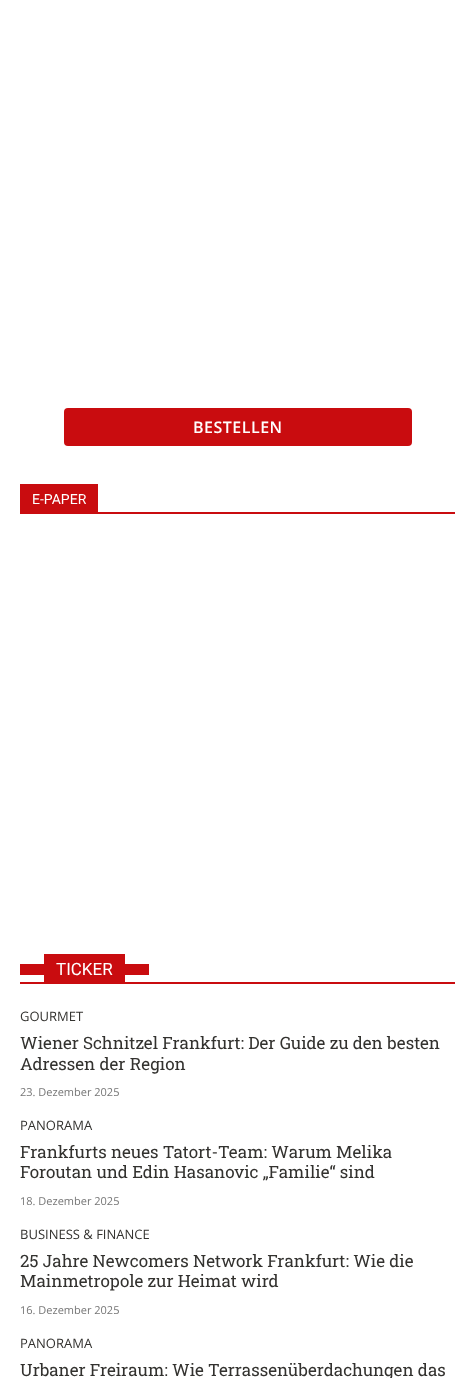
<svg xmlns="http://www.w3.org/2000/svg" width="475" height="1378">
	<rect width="100%" height="100%" fill="#FFFFFF" />
	<rect x="64" y="408" width="348" height="38" rx="4" fill="#C90C0F" />
	<text x="193" y="433" font-family="Open Sans" font-size="16" font-weight="600" letter-spacing="0.5" fill="#FFFFFF">BESTELLEN</text>
	<rect x="20" y="512" width="435" height="2" fill="#C90C0F" />
	<rect x="20" y="484" width="78" height="28" fill="#C90C0F" />
	<text x="32" y="504" font-family="Roboto" font-size="14" fill="#FFFFFF">E-PAPER</text>
	<rect x="20" y="982" width="435" height="2" fill="#C90C0F" />
	<rect x="20" y="964" width="24" height="11" fill="#C90C0F" />
	<rect x="44" y="954" width="81" height="28" fill="#C90C0F" />
	<text x="56" y="975" font-family="Roboto" font-size="17" fill="#FFFFFF">TICKER</text>
	<rect x="125" y="964" width="24" height="11" fill="#C90C0F" />
	<text x="20" y="1021" font-family="Open Sans" font-size="13" fill="#33322F">GOURMET</text>
	<g font-family="Roboto Slab" font-size="17" fill="#33322F">
		<text x="20" y="1049">Wiener Schnitzel Frankfurt: Der Guide zu den besten</text>
		<text x="20" y="1070">Adressen der Region</text>
	</g>
	<text x="20" y="1096" font-family="Open Sans" font-size="11" fill="#767676">23. Dezember 2025</text>
	<text x="20" y="1130" font-family="Open Sans" font-size="13" fill="#33322F">PANORAMA</text>
	<g font-family="Roboto Slab" font-size="17" fill="#33322F">
		<text x="20" y="1158">Frankfurts neues Tatort-Team: Warum Melika</text>
		<text x="20" y="1178">Foroutan und Edin Hasanovic „Familie“ sind</text>
	</g>
	<text x="20" y="1205" font-family="Open Sans" font-size="11" fill="#767676">18. Dezember 2025</text>
	<text x="20" y="1239" font-family="Open Sans" font-size="13" fill="#33322F">BUSINESS &amp; FINANCE</text>
	<g font-family="Roboto Slab" font-size="17" fill="#33322F">
		<text x="20" y="1267">25 Jahre Newcomers Network Frankfurt: Wie die</text>
		<text x="20" y="1287">Mainmetropole zur Heimat wird</text>
	</g>
	<text x="20" y="1314" font-family="Open Sans" font-size="11" fill="#767676">16. Dezember 2025</text>
	<text x="20" y="1348" font-family="Open Sans" font-size="13" fill="#33322F">PANORAMA</text>
	<text x="20" y="1376" font-family="Roboto Slab" font-size="17" fill="#33322F">Urbaner Freiraum: Wie Terrassenüberdachungen das</text>
</svg>
